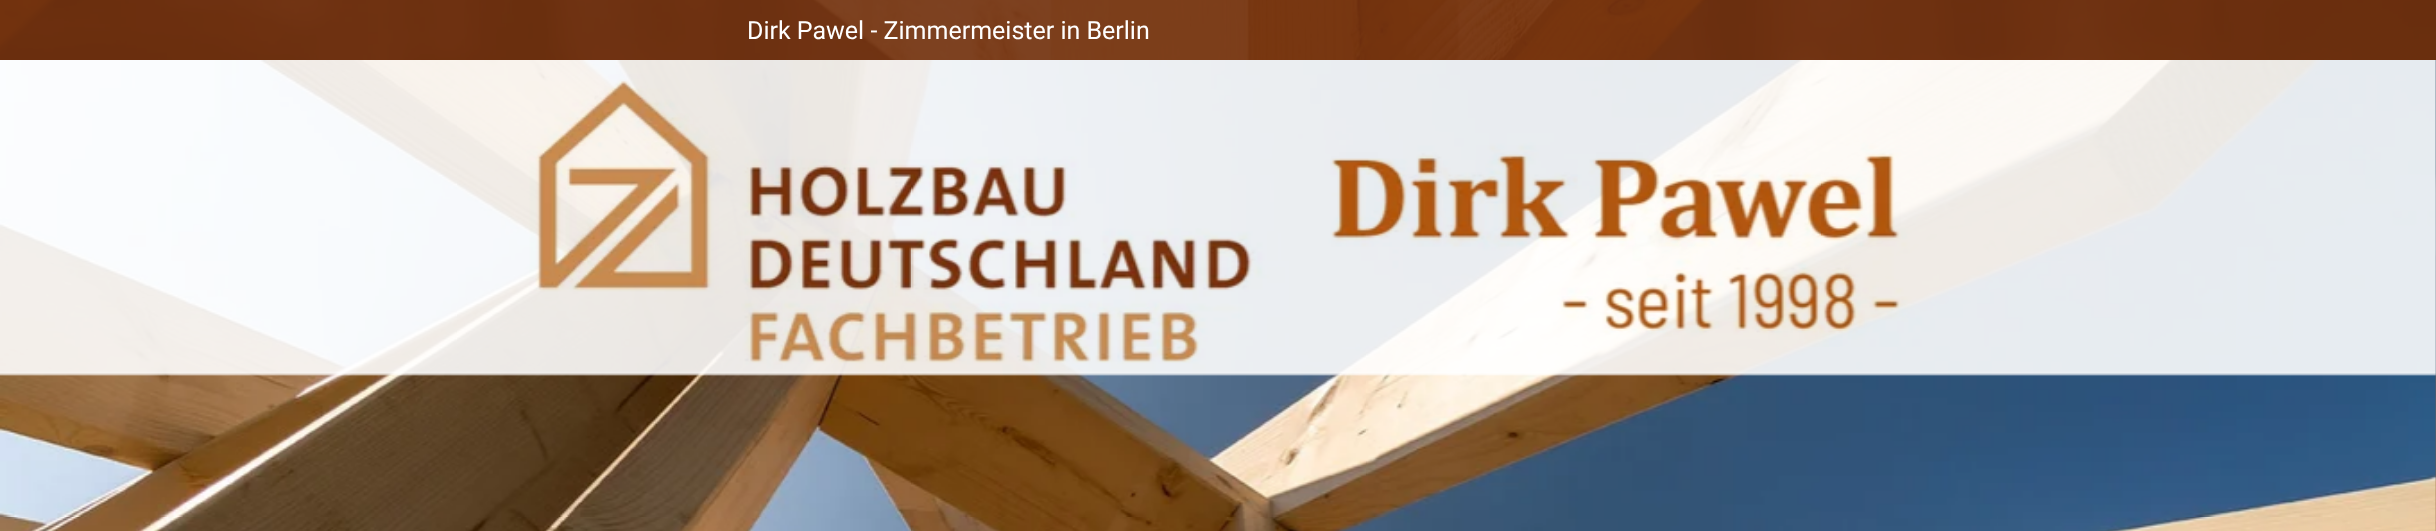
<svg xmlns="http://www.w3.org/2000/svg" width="2436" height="531">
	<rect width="100%" height="100%" fill="#FFFFFF" />
	<image x="0" y="0" width="2436" height="531" href="assets/img1.png" />
	<rect x="0" y="0" width="2436" height="60" fill="#72320F" fill-opacity="0.92" />
	<text x="747" y="39" font-family="Roboto" font-size="25" fill="#FFFFFF">Dirk Pawel - Zimmermeister in Berlin</text>
	<image x="0" y="60" width="2436" height="471" href="assets/img2.png" />
	<image x="0" y="60" width="2436" height="316" href="assets/img3.png" />
</svg>
